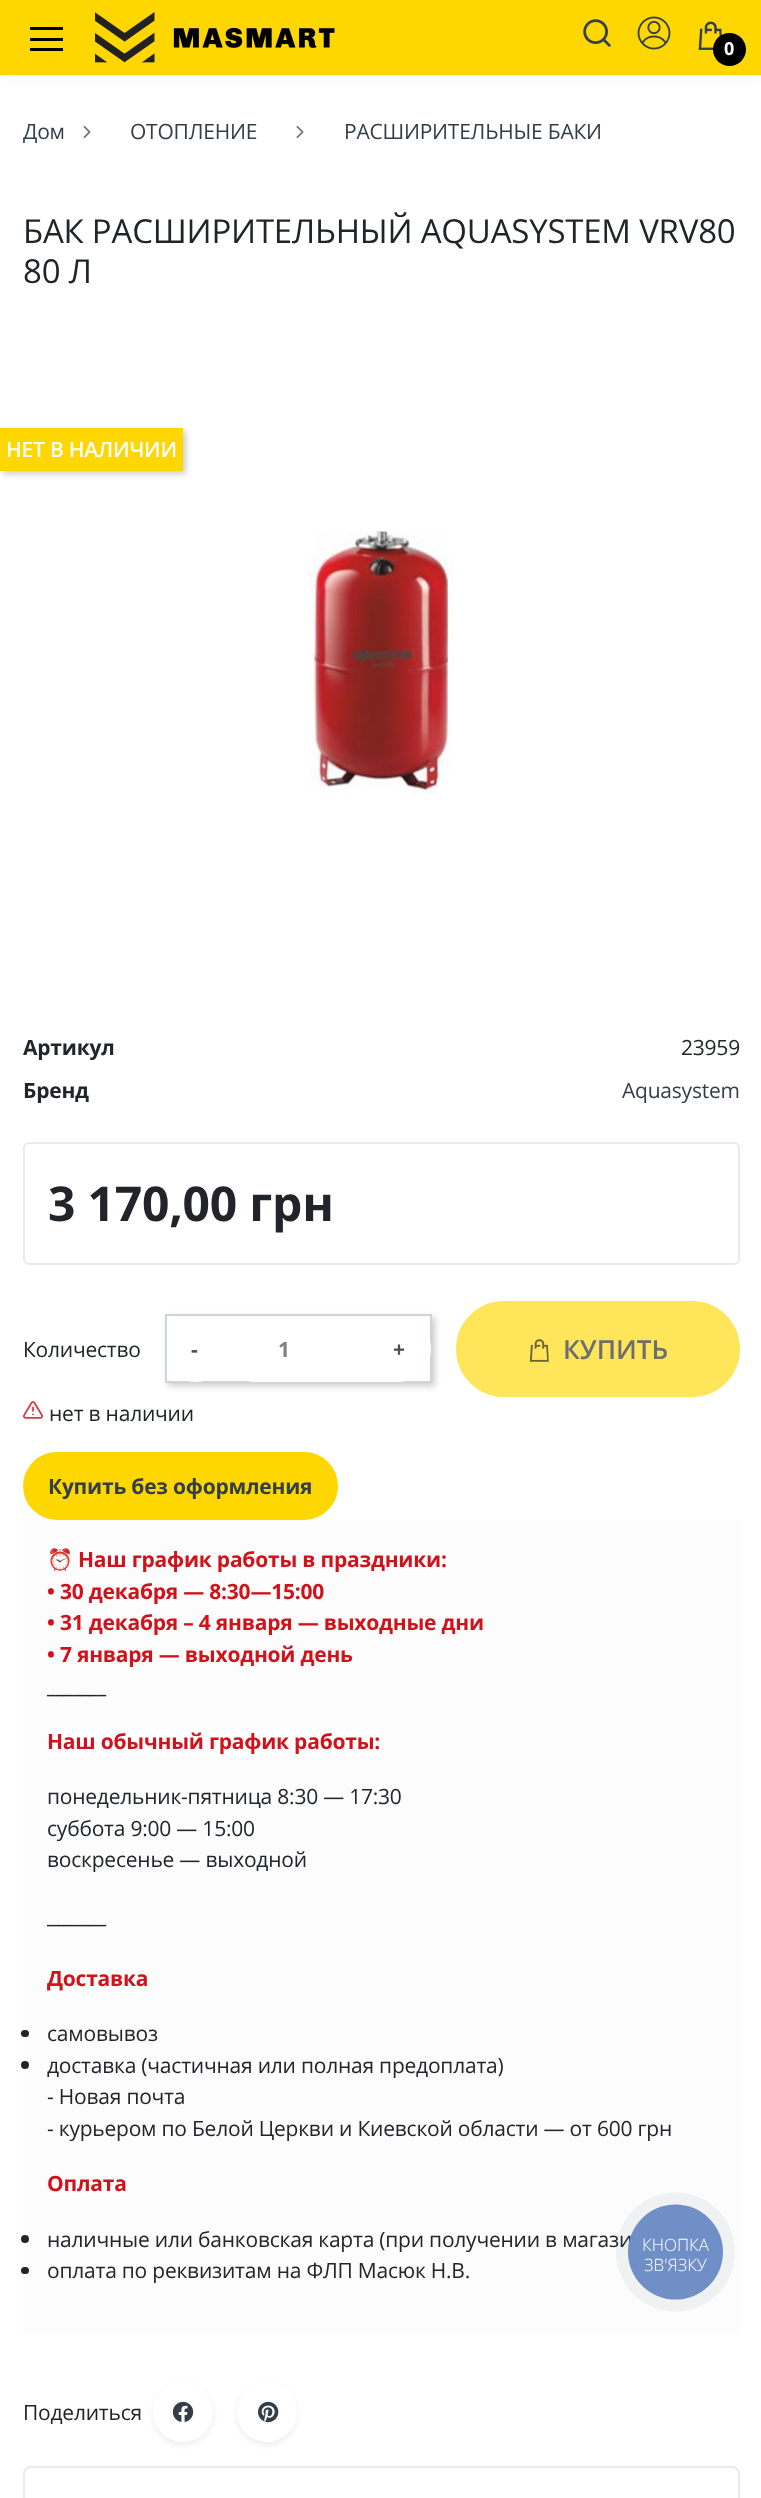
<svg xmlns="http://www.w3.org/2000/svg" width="761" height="2498">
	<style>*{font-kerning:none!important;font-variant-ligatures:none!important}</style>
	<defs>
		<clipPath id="clip1"><path d="M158 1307H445V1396H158ZM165 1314H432V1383H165Z" clip-rule="evenodd" /></clipPath>
	</defs>
	<rect width="100%" height="100%" fill="#FFFFFF" />
	<rect x="0" y="2" width="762" height="75" fill="#97A4AF" fill-opacity="0.1" filter="blur(7.5px)" />
	<rect x="0" y="0" width="761" height="75" fill="#FED700" />
	<rect x="30" y="27" width="33" height="3" fill="#000000" />
	<rect x="30" y="38" width="33" height="3" fill="#000000" />
	<rect x="30" y="48" width="33" height="3" fill="#000000" />
	<image x="95" y="12" width="240" height="51" href="assets/img1.png" />
	<image x="583" y="19" width="28" height="28" href="assets/img2.png" />
	<image x="637" y="16" width="34" height="34" href="assets/img3.png" />
	<image x="698" y="21" width="24" height="29" href="assets/img4.png" />
	<circle cx="729.5" cy="49.5" r="16.5" fill="#000000" />
	<text x="724" y="55" font-family="Open Sans" font-size="18" font-weight="700" letter-spacing="-0.22" fill="#FFFFFF">0</text>
	<text x="23" y="139" font-family="Open Sans" font-size="21" letter-spacing="-0.22" fill="#333E48">Дом</text>
	<image x="83" y="125" width="8" height="14" href="assets/img5.png" />
	<text x="130" y="139" font-family="Open Sans" font-size="21" letter-spacing="-0.22" fill="#333E48">ОТОПЛЕНИЕ</text>
	<image x="296" y="125" width="8" height="14" href="assets/img5.png" />
	<text x="344" y="139" font-family="Open Sans" font-size="21" letter-spacing="-0.22" fill="#333E48">РАСШИРИТЕЛЬНЫЕ БАКИ</text>
	<g font-family="Open Sans" font-size="33" letter-spacing="-0.22" fill="#212529">
		<text x="23" y="243">БАК РАСШИРИТЕЛЬНЫЙ AQUASYSTEM VRV80</text>
		<text x="23" y="283">80 Л</text>
	</g>
	<rect x="3" y="431" width="183" height="43" fill="#000000" fill-opacity="0.2" filter="blur(3px)" />
	<rect x="0" y="428" width="183" height="43" fill="#FED700" />
	<text x="6" y="457" font-family="Open Sans" font-size="21" font-weight="600" letter-spacing="-0.22" fill="#FFFFFF">НЕТ В НАЛИЧИИ</text>
	<image x="309" y="530" width="144" height="266" href="assets/img6.png" />
	<text x="23" y="1055" font-family="Open Sans" font-size="21" font-weight="700" letter-spacing="-0.22" fill="#212529">Артикул</text>
	<text x="681" y="1055" font-family="Open Sans" font-size="21" letter-spacing="-0.22" fill="#212529">23959</text>
	<text x="23" y="1098" font-family="Open Sans" font-size="21" font-weight="700" letter-spacing="-0.22" fill="#212529">Бренд</text>
	<text x="622" y="1098" font-family="Open Sans" font-size="21" letter-spacing="-0.22" fill="#333E48">Aquasystem</text>
	<rect x="24" y="1143" width="715" height="121" rx="5" fill="none" stroke="#E9E9E9" stroke-width="2" />
	<text x="48" y="1221" font-family="Open Sans" font-size="48" font-weight="700" letter-spacing="-0.22" fill="#212529">3 170,00 грн</text>
	<text x="23" y="1357" font-family="Open Sans" font-size="21" letter-spacing="-0.22" fill="#212529">Количество</text>
	<g clip-path="url(#clip1)">
		<rect x="168" y="1317" width="267" height="69" fill="#000000" fill-opacity="0.2" filter="blur(3px)" />
	</g>
	<rect x="166" y="1315" width="265" height="67" fill="none" stroke="#CED4DA" stroke-width="2" />
	<path d="M255 1316H369V1382H255C237 1382 222 1367 222 1349C222 1331 237 1316 255 1316Z" fill="#FFFFFF" />
	<rect x="167" y="1316" width="57" height="66" rx="28.5" fill="#FFFFFF" />
	<text x="191" y="1357" font-family="Open Sans" font-size="21" font-weight="700" fill="#495057">-</text>
	<text x="278" y="1357" font-family="Open Sans" font-size="21" font-weight="700" fill="#818181">1</text>
	<path d="M368 1316H398C416 1316 431 1331 431 1349C431 1367 416 1382 398 1382H368Z" fill="#FFFFFF" />
	<text x="393" y="1357" font-family="Open Sans" font-size="21" font-weight="700" fill="#495057">+</text>
	<rect x="457" y="1302" width="282" height="94" rx="47" fill="#FEE559" stroke="#FEE559" stroke-width="2" />
	<image x="529" y="1339" width="20" height="23" href="assets/img7.png" />
	<text x="563" y="1359" font-family="Open Sans" font-size="26.25" font-weight="600" fill="#6D6E6F">КУПИТЬ</text>
	<image x="23" y="1401" width="20" height="18" href="assets/img8.png" />
	<text x="49" y="1421" font-family="Open Sans" font-size="21" letter-spacing="-0.22" fill="#212529">нет в наличии</text>
	<rect x="24" y="1453" width="313" height="66" rx="33" fill="#FED700" stroke="#FED700" stroke-width="2" />
	<text x="48" y="1494" font-family="Open Sans" font-size="21" font-weight="700" letter-spacing="-0.22" fill="#333E48">Купить без оформления</text>
	<rect x="23" y="1520" width="717" height="814" fill="#FCFCFC" />
	<text x="47" y="1567" font-family="Noto Color Emoji" font-size="21" font-weight="700" letter-spacing="-0.22" fill="#D0121A">⏰</text>
	<g font-family="Open Sans" font-size="21" font-weight="700" letter-spacing="-0.22" fill="#D0121A">
		<text x="78" y="1567">Наш график работы в праздники:</text>
		<text x="47" y="1599">• 30 декабря — 8:30—15:00</text>
		<text x="47" y="1630">• 31 декабря – 4 января — выходные дни</text>
		<text x="47" y="1662">• 7 января — выходной день</text>
	</g>
	<text x="47" y="1693" font-family="Open Sans" font-size="21" font-weight="700" letter-spacing="-0.22" fill="#212529">_______</text>
	<rect x="47" y="1727" width="333" height="28" fill="#FFFFFF" />
	<text x="47" y="1749" font-family="Open Sans" font-size="21" font-weight="700" letter-spacing="-0.22" fill="#D0121A">Наш обычный график работы:</text>
	<g font-family="Open Sans" font-size="21" letter-spacing="-0.22" fill="#212529">
		<text x="47" y="1804">понедельник-пятница 8:30 — 17:30</text>
		<text x="47" y="1836">суббота 9:00 — 15:00</text>
		<text x="47" y="1867">воскресенье — выходной</text>
	</g>
	<text x="47" y="1923" font-family="Open Sans" font-size="21" font-weight="700" letter-spacing="-0.22" fill="#212529">_______</text>
	<text x="47" y="1986" font-family="Open Sans" font-size="21" font-weight="700" letter-spacing="-0.22" fill="#D0121A">Доставка</text>
	<rect x="21" y="2030" width="8" height="7" rx="3.5" fill="#212529" />
	<text x="47" y="2041" font-family="Open Sans" font-size="21" letter-spacing="-0.22" fill="#212529">самовывоз</text>
	<circle cx="25" cy="2065" r="4" fill="#212529" />
	<g font-family="Open Sans" font-size="21" letter-spacing="-0.22" fill="#212529">
		<text x="47" y="2073">доставка (частичная или полная предоплата)</text>
		<text x="47" y="2104">- Новая почта</text>
		<text x="47" y="2136">- курьером по Белой Церкви и Киевской области — от 600 грн</text>
	</g>
	<text x="47" y="2191" font-family="Open Sans" font-size="21" font-weight="700" letter-spacing="-0.22" fill="#D0121A">Оплата</text>
	<circle cx="25" cy="2239" r="4" fill="#212529" />
	<text x="47" y="2247" font-family="Open Sans" font-size="21" letter-spacing="-0.22" fill="#212529">наличные или банковская карта (при получении в магази</text>
	<rect x="21" y="2267" width="8" height="7" rx="3.5" fill="#212529" />
	<g font-family="Open Sans" font-size="21" letter-spacing="-0.22" fill="#212529">
		<text x="47" y="2278">оплата по реквизитам на ФЛП Масюк Н.В.</text>
		<text x="23" y="2420">Поделиться</text>
	</g>
	<rect x="153" y="2385" width="60" height="60" rx="30" fill="#000000" fill-opacity="0.07" filter="blur(3px)" />
	<circle cx="183" cy="2412" r="30" fill="#FFFFFF" />
	<image x="172" y="2401" width="22" height="21" href="assets/img9.png" />
	<rect x="237" y="2385" width="60" height="60" rx="30" fill="#000000" fill-opacity="0.07" filter="blur(3px)" />
	<circle cx="267" cy="2412" r="30" fill="#FFFFFF" />
	<image x="258" y="2401" width="21" height="22" href="assets/img10.png" />
	<rect x="24" y="2467" width="715" height="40" rx="7" fill="none" stroke="#E7EAF3" stroke-width="2" />
	<circle cx="675.5" cy="2252" r="59.5" fill="#2A405D" fill-opacity="0.06" />
	<circle cx="675.5" cy="2252" r="47.5" fill="#708FC6" />
	<g font-family="Open Sans" font-size="17" font-weight="300" fill="#FFFFFF">
		<text x="642" y="2251">КНОПКА</text>
		<text x="644" y="2271">ЗВ'ЯЗКУ</text>
	</g>
</svg>
